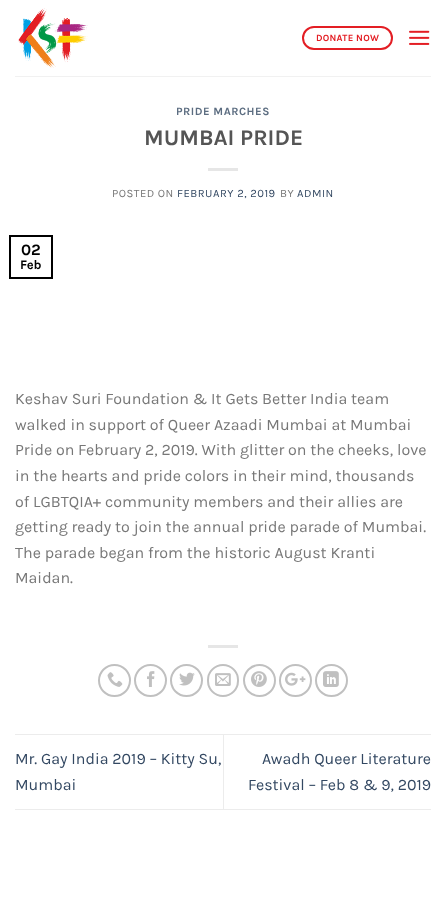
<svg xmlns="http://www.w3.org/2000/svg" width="446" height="918">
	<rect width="100%" height="100%" fill="#FFFFFF" />
	<image x="18" y="8" width="70" height="60" href="assets/img1.png" />
	<rect x="303" y="27" width="89" height="22" rx="11" fill="none" stroke="#E31E24" stroke-width="2" />
	<text x="316" y="41" font-family="Karla" font-size="9.5" font-weight="700" letter-spacing="0.25" fill="#E31E24">DONATE NOW</text>
	<image x="409" y="30" width="21" height="15" href="assets/img2.png" />
	<rect x="15" y="76" width="416" height="1" fill="#F1F1F1" />
	<text x="176" y="115" font-family="Karla" font-size="11.25" font-weight="700" letter-spacing="0.5" fill="#5C6D81">PRIDE MARCHES</text>
	<text x="144" y="145" font-family="Karla" font-size="22.5" font-weight="700" fill="#555555">MUMBAI PRIDE</text>
	<rect x="208" y="168" width="30" height="3" fill="#E6E6E6" />
	<text x="112" y="197" font-family="Karla" font-size="11.25" letter-spacing="0.5" fill="#777777">POSTED ON</text>
	<text x="177" y="197" font-family="Karla" font-size="11.25" letter-spacing="0.5" fill="#334862">FEBRUARY 2, 2019</text>
	<text x="280" y="197" font-family="Karla" font-size="11.25" letter-spacing="0.5" fill="#777777">BY</text>
	<text x="297" y="197" font-family="Karla" font-size="11.25" letter-spacing="0.5" fill="#334862">ADMIN</text>
	<rect x="10" y="236" width="42" height="42" fill="none" stroke="#000000" stroke-width="2" />
	<text x="21" y="255" font-family="Karla" font-size="16" font-weight="700" fill="#000000">02</text>
	<text x="20" y="269" font-family="Karla" font-size="13" font-weight="700" fill="#000000">Feb</text>
	<g font-family="Karla" font-size="16" fill="#777777">
		<text x="15" y="404">Keshav Suri Foundation &amp; It Gets Better India team</text>
		<text x="15" y="430">walked in support of Queer Azaadi Mumbai at Mumbai</text>
		<text x="15" y="455">Pride on February 2, 2019. With glitter on the cheeks, love</text>
		<text x="15" y="481">in the hearts and pride colors in their mind, thousands</text>
		<text x="15" y="507">of LGBTQIA+ community members and their allies are</text>
		<text x="15" y="532">getting ready to join the annual pride parade of Mumbai.</text>
		<text x="15" y="558">The parade began from the historic August Kranti</text>
		<text x="15" y="583">Maidan.</text>
	</g>
	<rect x="208" y="645" width="30" height="3" fill="#E6E6E6" />
	<circle cx="114.5" cy="680.5" r="15.5" fill="none" stroke="#C0C0C0" stroke-width="2" />
	<image x="107" y="672" width="16" height="15" href="assets/img3.png" />
	<circle cx="150.5" cy="680.5" r="15.5" fill="none" stroke="#C0C0C0" stroke-width="2" />
	<image x="147" y="671" width="8" height="16" href="assets/img4.png" />
	<circle cx="186.5" cy="680.5" r="15.5" fill="none" stroke="#C0C0C0" stroke-width="2" />
	<image x="179" y="672" width="16" height="14" href="assets/img5.png" />
	<rect x="208" y="665" width="30" height="31" rx="15" fill="none" stroke="#C0C0C0" stroke-width="2" />
	<image x="215" y="673" width="16" height="13" href="assets/img6.png" />
	<circle cx="259.5" cy="680.5" r="15.5" fill="none" stroke="#C0C0C0" stroke-width="2" />
	<image x="251" y="671" width="16" height="16" href="assets/img7.png" />
	<circle cx="295.5" cy="680.5" r="15.5" fill="none" stroke="#C0C0C0" stroke-width="2" />
	<image x="285" y="672" width="21" height="14" href="assets/img8.png" />
	<circle cx="331.5" cy="680.5" r="15.5" fill="none" stroke="#C0C0C0" stroke-width="2" />
	<image x="323" y="671" width="16" height="16" href="assets/img9.png" />
	<rect x="15" y="734" width="416" height="1" fill="#ECECEC" />
	<rect x="15" y="809" width="416" height="1" fill="#ECECEC" />
	<g font-family="Karla" font-size="16" fill="#334862">
		<text x="15" y="764">Mr. Gay India 2019 – Kitty Su,</text>
		<text x="15" y="790">Mumbai</text>
	</g>
	<rect x="223" y="735" width="1" height="74" fill="#ECECEC" />
	<g font-family="Karla" font-size="16" fill="#334862">
		<text x="262" y="764">Awadh Queer Literature</text>
		<text x="248" y="790">Festival – Feb 8 &amp; 9, 2019</text>
	</g>
</svg>
